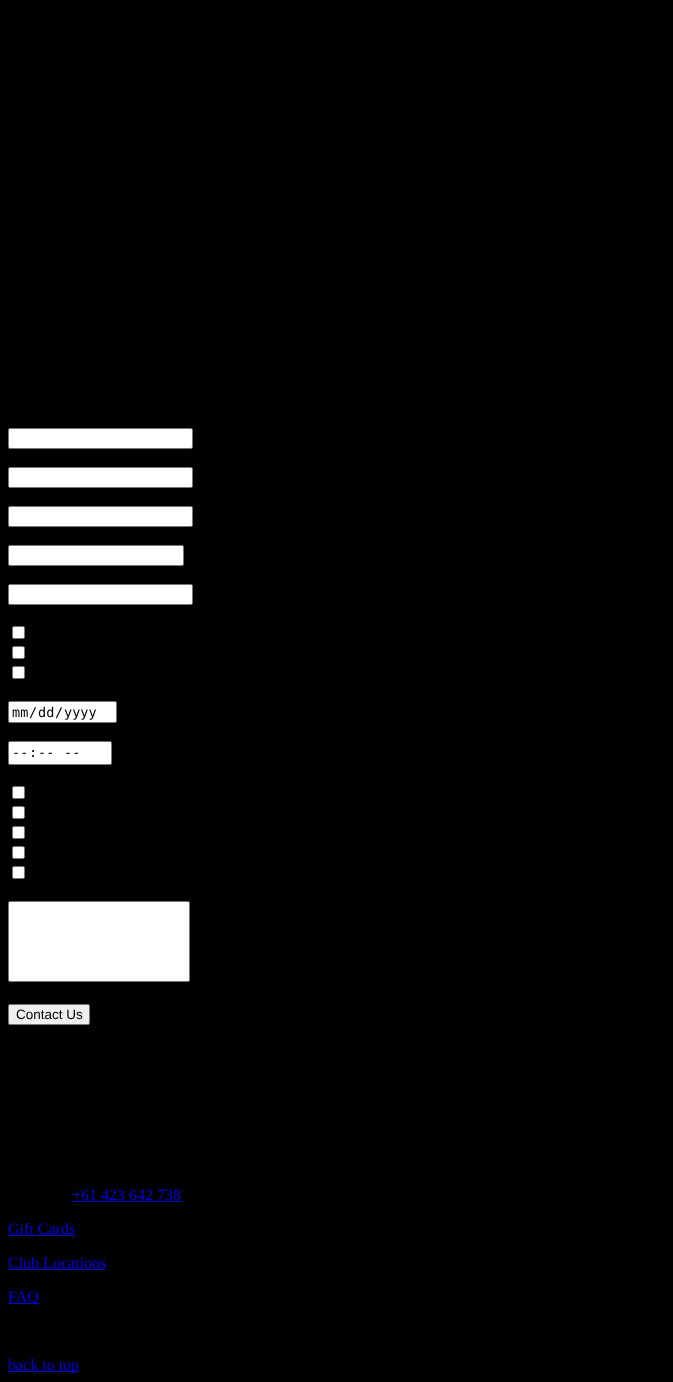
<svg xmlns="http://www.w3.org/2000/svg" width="673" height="1382">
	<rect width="100%" height="100%" fill="#000000" />
	<rect x="8.5" y="428.5" width="184" height="20" rx="1.5" fill="#FFFFFF" stroke="#767676" />
	<rect x="8.5" y="467.5" width="184" height="20" rx="1.5" fill="#FFFFFF" stroke="#767676" />
	<rect x="8.5" y="506.5" width="184" height="20" rx="1.5" fill="#FFFFFF" stroke="#767676" />
	<rect x="8.5" y="545.5" width="175" height="20" rx="1.5" fill="#FFFFFF" stroke="#767676" />
	<rect x="8.5" y="584.5" width="184" height="20" rx="1.5" fill="#FFFFFF" stroke="#767676" />
	<rect x="12.5" y="626.5" width="12" height="12" rx="1.5" fill="#FFFFFF" stroke="#767676" />
	<rect x="12.5" y="646.5" width="12" height="12" rx="1.5" fill="#FFFFFF" stroke="#767676" />
	<rect x="12.5" y="666.5" width="12" height="12" rx="1.5" fill="#FFFFFF" stroke="#767676" />
	<rect x="8.5" y="701.5" width="108" height="21" rx="1.5" fill="#FFFFFF" stroke="#767676" />
	<g font-family="DejaVu Sans Mono" font-size="13.5" fill="#000000">
		<text x="12" y="717">mm</text>
		<text x="29" y="717">/</text>
		<text x="38" y="717">dd</text>
		<text x="55" y="717">/</text>
		<text x="64" y="717">yyyy</text>
	</g>
	<rect x="8.5" y="741.5" width="103" height="23" rx="1.5" fill="#FFFFFF" stroke="#767676" />
	<g font-family="DejaVu Sans Mono" font-size="13.5" fill="#000000">
		<text x="12" y="757">--</text>
		<text x="29" y="757">:</text>
		<text x="38" y="757">--</text>
		<text x="64" y="757">--</text>
	</g>
	<rect x="12.5" y="786.5" width="12" height="12" rx="1.5" fill="#FFFFFF" stroke="#767676" />
	<rect x="12.5" y="806.5" width="12" height="12" rx="1.5" fill="#FFFFFF" stroke="#767676" />
	<rect x="12.5" y="826.5" width="12" height="12" rx="1.5" fill="#FFFFFF" stroke="#767676" />
	<rect x="12.5" y="846.5" width="12" height="12" rx="1.5" fill="#FFFFFF" stroke="#767676" />
	<rect x="12.5" y="866.5" width="12" height="12" rx="1.5" fill="#FFFFFF" stroke="#767676" />
	<rect x="8.5" y="901.5" width="181" height="80" rx="1.5" fill="#FFFFFF" stroke="#767676" />
	<rect x="8.5" y="1004.5" width="81" height="20" rx="1.5" fill="#EFEFEF" stroke="#767676" />
	<text x="16" y="1019" font-family="Liberation Sans" font-size="13.5" fill="#000000">Contact Us</text>
	<text x="72" y="1200" font-family="Liberation Serif" font-size="16" fill="#0000EE">+61 423 642 738</text>
	<rect x="72" y="1201" width="109" height="1" fill="#0000EE" />
	<text x="8" y="1234" font-family="Liberation Serif" font-size="16" fill="#0000EE">Gift Cards</text>
	<rect x="8" y="1235" width="67" height="1" fill="#0000EE" />
	<text x="8" y="1268" font-family="Liberation Serif" font-size="16" fill="#0000EE">Club Locations</text>
	<rect x="8" y="1269" width="98" height="1" fill="#0000EE" />
	<rect x="8" y="1303" width="31" height="1" fill="#0000EE" />
	<text x="8" y="1302" font-family="Liberation Serif" font-size="16" fill="#0000EE">FAQ</text>
	<rect x="8" y="1371" width="71" height="1" fill="#0000EE" />
	<text x="8" y="1370" font-family="Liberation Serif" font-size="16" fill="#0000EE">back to top</text>
</svg>
